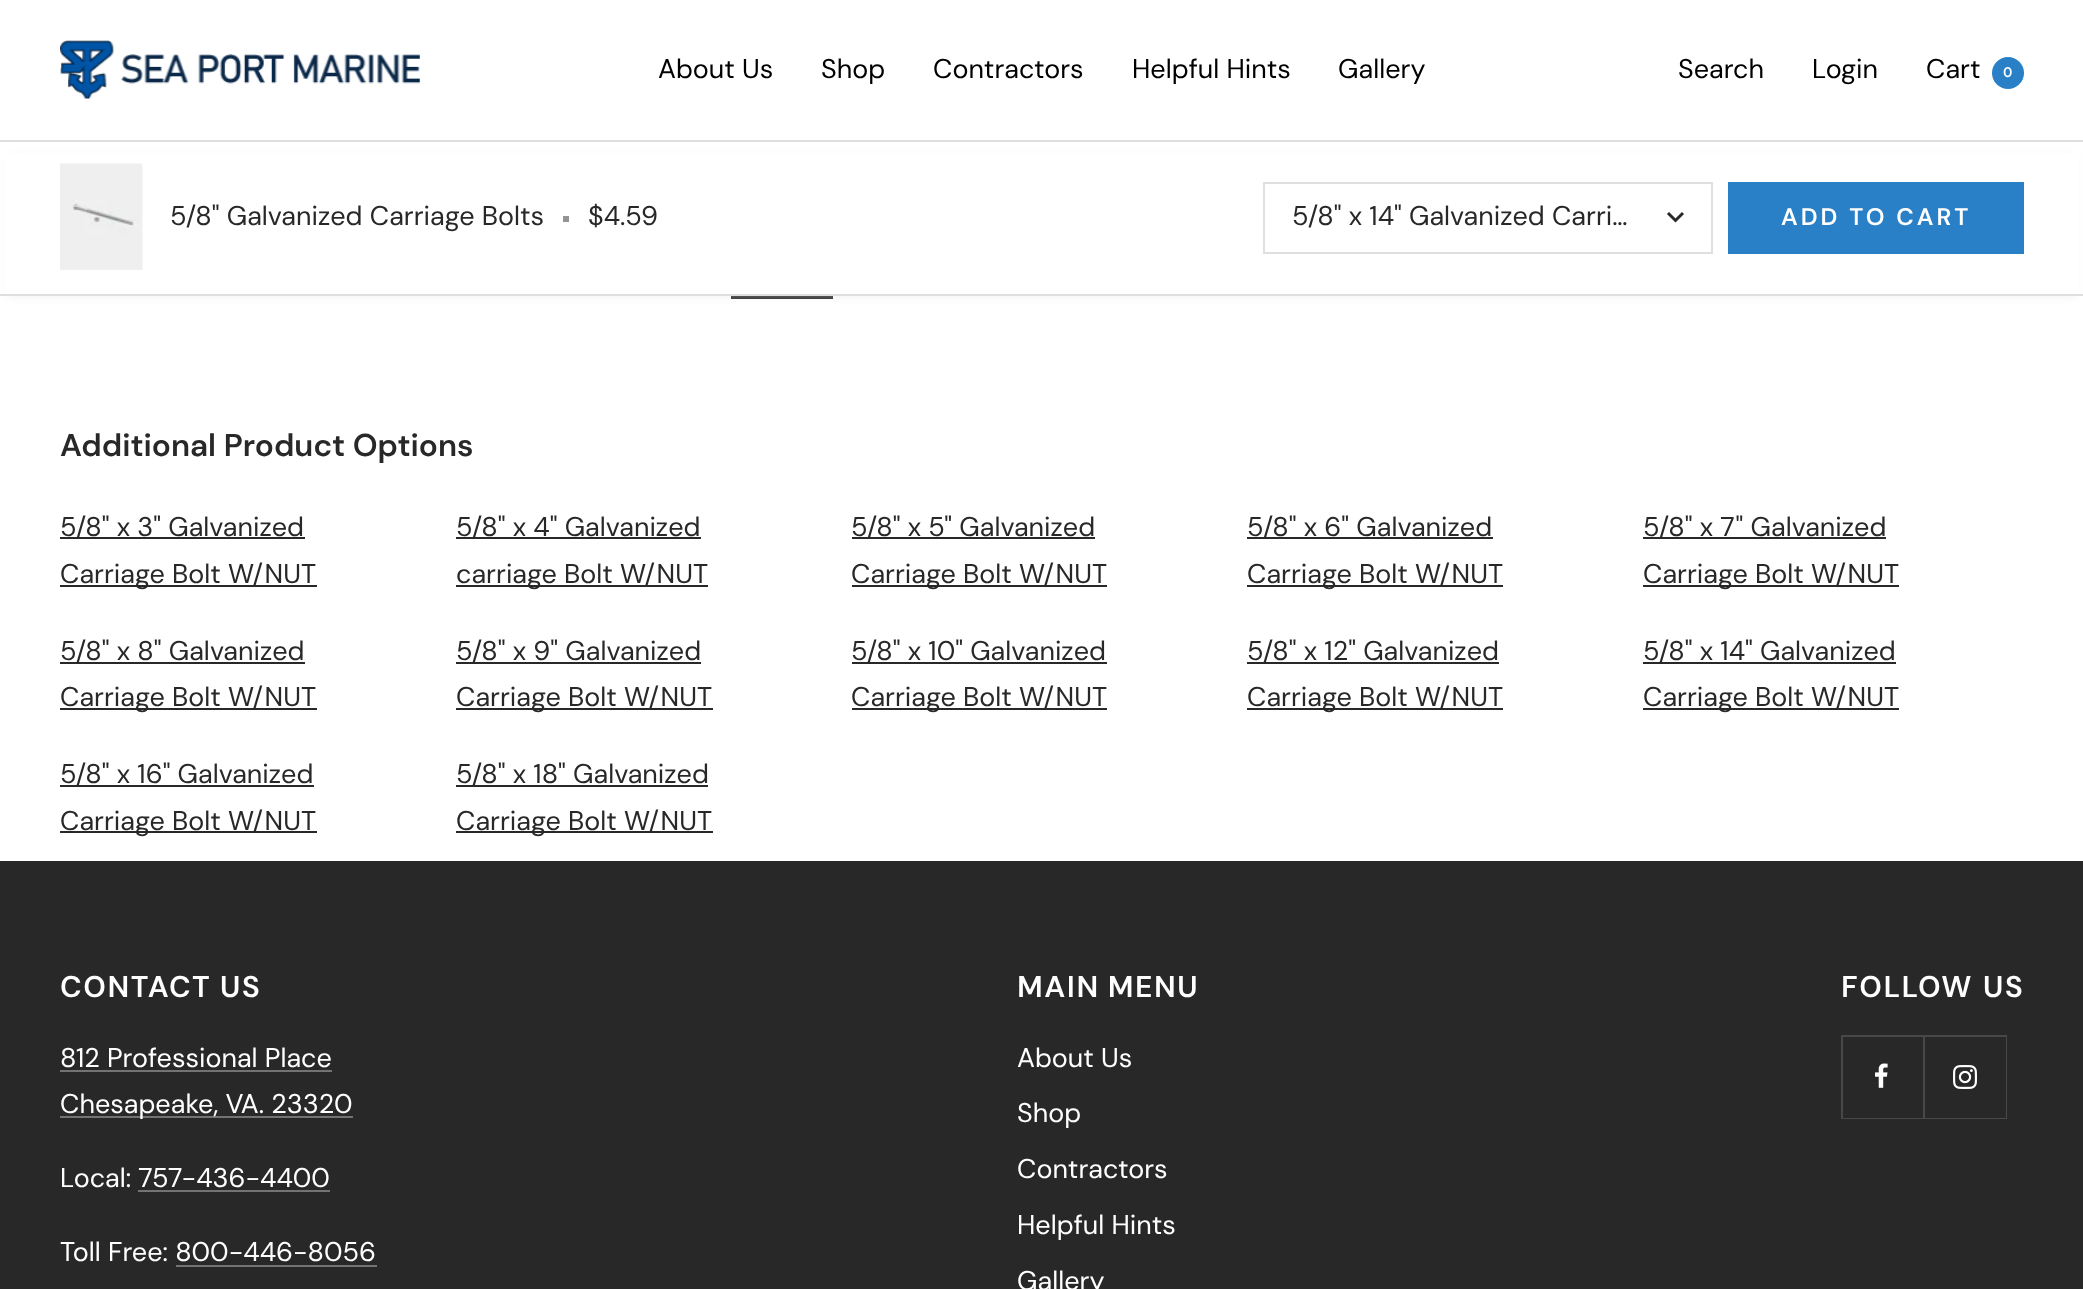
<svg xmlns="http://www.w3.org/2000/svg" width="2083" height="1289">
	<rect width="100%" height="100%" fill="#FFFFFF" />
	<image x="60" y="40" width="360" height="59" href="assets/img1.png" />
	<g font-family="DM Sans" font-size="27" fill="#000000">
		<text x="658" y="78">About Us</text>
		<text x="821" y="78">Shop</text>
		<text x="933" y="78">Contractors</text>
		<text x="1132" y="78">Helpful Hints</text>
		<text x="1338" y="78">Gallery</text>
		<text x="1678" y="78">Search</text>
		<text x="1812" y="78">Login</text>
		<text x="1926" y="78">Cart</text>
	</g>
	<circle cx="2008" cy="73" r="16" fill="#2980C7" />
	<text x="2003" y="77" font-family="'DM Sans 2'" font-size="14" font-weight="600" fill="#FFFFFF">0</text>
	<rect x="732.5" y="172.5" width="99" height="125" fill="none" stroke="#282828" stroke-width="3" />
	<rect x="8" y="156" width="2068" height="141" fill="#DFDFDF" fill-opacity="0.4" filter="blur(4px)" />
	<rect x="5" y="153" width="2074" height="141" fill="#FFFFFF" />
	<rect x="0" y="140" width="2083" height="2" fill="#DFDFDF" />
	<rect x="0" y="294" width="2083" height="2" fill="#DFDFDF" />
	<image x="60" y="163" width="83" height="107" href="assets/img2.png" />
	<text x="170" y="225" font-family="DM Sans" font-size="27" fill="#282828">5/8" Galvanized Carriage Bolts</text>
	<rect x="563" y="216" width="6" height="6" fill="#949494" />
	<text x="588" y="225" font-family="DM Sans" font-size="27" fill="#282828">$4.59</text>
	<rect x="1264" y="183" width="448" height="70" fill="none" stroke="#DFDFDF" stroke-width="2" />
	<text x="1292" y="225" font-family="DM Sans" font-size="27" fill="#282828">5/8" x 14" Galvanized Carri…</text>
	<path d="M1668 213L1675.5 220.5L1683 213" fill="none" stroke="#282828" stroke-width="3" />
	<rect x="1728" y="182" width="296" height="72" fill="#2980C7" />
	<text x="1781" y="225" font-family="'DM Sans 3'" font-size="24" font-weight="600" letter-spacing="3" fill="#FFFFFF">ADD TO CART</text>
	<text x="60" y="456" font-family="DM Sans" font-size="31.6" font-weight="600" fill="#282828">Additional Product Options</text>
	<rect x="60" y="537" width="245" height="2" fill="#282828" />
	<text x="60" y="536" font-family="DM Sans" font-size="27" fill="#282828">5/8" x 3" Galvanized</text>
	<rect x="60" y="585" width="257" height="2" fill="#282828" />
	<text x="60" y="583" font-family="DM Sans" font-size="27" fill="#282828">Carriage Bolt W/NUT</text>
	<rect x="456" y="537" width="245" height="2" fill="#282828" />
	<text x="456" y="536" font-family="DM Sans" font-size="27" fill="#282828">5/8" x 4" Galvanized</text>
	<rect x="456" y="585" width="252" height="2" fill="#282828" />
	<text x="456" y="583" font-family="DM Sans" font-size="27" fill="#282828">carriage Bolt W/NUT</text>
	<rect x="852" y="537" width="243" height="2" fill="#282828" />
	<text x="851" y="536" font-family="DM Sans" font-size="27" fill="#282828">5/8" x 5" Galvanized</text>
	<rect x="852" y="585" width="255" height="2" fill="#282828" />
	<text x="851" y="583" font-family="DM Sans" font-size="27" fill="#282828">Carriage Bolt W/NUT</text>
	<rect x="1247" y="537" width="246" height="2" fill="#282828" />
	<text x="1247" y="536" font-family="DM Sans" font-size="27" fill="#282828">5/8" x 6" Galvanized</text>
	<rect x="1247" y="585" width="256" height="2" fill="#282828" />
	<text x="1247" y="583" font-family="DM Sans" font-size="27" fill="#282828">Carriage Bolt W/NUT</text>
	<rect x="1643" y="537" width="243" height="2" fill="#282828" />
	<text x="1643" y="536" font-family="DM Sans" font-size="27" fill="#282828">5/8" x 7" Galvanized</text>
	<rect x="1643" y="585" width="256" height="2" fill="#282828" />
	<text x="1643" y="583" font-family="DM Sans" font-size="27" fill="#282828">Carriage Bolt W/NUT</text>
	<rect x="60" y="662" width="245" height="2" fill="#282828" />
	<text x="60" y="660" font-family="DM Sans" font-size="27" fill="#282828">5/8" x 8" Galvanized</text>
	<rect x="60" y="708" width="257" height="2" fill="#282828" />
	<text x="60" y="706" font-family="DM Sans" font-size="27" fill="#282828">Carriage Bolt W/NUT</text>
	<rect x="456" y="662" width="245" height="2" fill="#282828" />
	<text x="456" y="660" font-family="DM Sans" font-size="27" fill="#282828">5/8" x 9" Galvanized</text>
	<rect x="456" y="708" width="257" height="2" fill="#282828" />
	<text x="456" y="706" font-family="DM Sans" font-size="27" fill="#282828">Carriage Bolt W/NUT</text>
	<rect x="852" y="662" width="255" height="2" fill="#282828" />
	<text x="851" y="660" font-family="DM Sans" font-size="27" fill="#282828">5/8" x 10" Galvanized</text>
	<rect x="852" y="708" width="255" height="2" fill="#282828" />
	<text x="851" y="706" font-family="DM Sans" font-size="27" fill="#282828">Carriage Bolt W/NUT</text>
	<rect x="1247" y="662" width="252" height="2" fill="#282828" />
	<text x="1247" y="660" font-family="DM Sans" font-size="27" fill="#282828">5/8" x 12" Galvanized</text>
	<rect x="1247" y="708" width="256" height="2" fill="#282828" />
	<text x="1247" y="706" font-family="DM Sans" font-size="27" fill="#282828">Carriage Bolt W/NUT</text>
	<rect x="1643" y="662" width="253" height="2" fill="#282828" />
	<text x="1643" y="660" font-family="DM Sans" font-size="27" fill="#282828">5/8" x 14" Galvanized</text>
	<rect x="1643" y="708" width="256" height="2" fill="#282828" />
	<text x="1643" y="706" font-family="DM Sans" font-size="27" fill="#282828">Carriage Bolt W/NUT</text>
	<rect x="60" y="785" width="254" height="2" fill="#282828" />
	<text x="60" y="783" font-family="DM Sans" font-size="27" fill="#282828">5/8" x 16" Galvanized</text>
	<rect x="60" y="831" width="257" height="2" fill="#282828" />
	<text x="60" y="830" font-family="DM Sans" font-size="27" fill="#282828">Carriage Bolt W/NUT</text>
	<rect x="456" y="785" width="252" height="2" fill="#282828" />
	<text x="456" y="783" font-family="DM Sans" font-size="27" fill="#282828">5/8" x 18" Galvanized</text>
	<rect x="456" y="831" width="257" height="2" fill="#282828" />
	<text x="456" y="830" font-family="DM Sans" font-size="27" fill="#282828">Carriage Bolt W/NUT</text>
	<rect x="0" y="861" width="2083" height="428" fill="#282828" />
	<text x="60" y="997" font-family="'DM Sans 2'" font-size="30" font-weight="600" letter-spacing="1.5" fill="#FFFFFF">CONTACT US</text>
	<text x="60" y="1067" font-family="DM Sans" font-size="27" fill="#FFFFFF">812 Professional Place</text>
	<rect x="60" y="1070" width="272" height="2" fill="#737373" />
	<rect x="60" y="1116" width="293" height="2" fill="#737373" />
	<g font-family="DM Sans" font-size="27" fill="#FFFFFF">
		<text x="60" y="1113">Chesapeake, VA. 23320</text>
		<text x="60" y="1187">Local: 757-436-4400</text>
	</g>
	<rect x="138" y="1190" width="192" height="2" fill="#737373" />
	<text x="60" y="1261" font-family="DM Sans" font-size="27" fill="#FFFFFF">Toll Free: 800-446-8056</text>
	<rect x="176" y="1265" width="201" height="2" fill="#737373" />
	<text x="1017" y="997" word-spacing="-1" font-family="'DM Sans 2'" font-size="30" font-weight="600" letter-spacing="1.5" fill="#FFFFFF">MAIN MENU</text>
	<g font-family="DM Sans" font-size="27" fill="#FFFFFF">
		<text x="1017" y="1067">About Us</text>
		<text x="1017" y="1122">Shop</text>
		<text x="1017" y="1178">Contractors</text>
		<text x="1017" y="1234">Helpful Hints</text>
		<text x="1017" y="1290">Gallery</text>
	</g>
	<text x="1841" y="997" word-spacing="1" font-family="'DM Sans 2'" font-size="30" font-weight="600" letter-spacing="1.5" fill="#FFFFFF">FOLLOW US</text>
	<path d="M1842 1118V1119H1925V1037H1923V1118Z" fill="#484848" />
	<rect x="1841" y="1118" width="1" height="1" fill="#484848" />
	<path d="M1842 1118H1925V1035H1923V1118Z" fill="#484848" />
	<rect x="1841" y="1035" width="165" height="2" fill="#484848" />
	<rect x="1841" y="1035" width="2" height="83" fill="#484848" />
	<image x="1875" y="1063" width="13" height="25" href="assets/img3.png" />
	<path d="M1925 1118V1119H2007V1037H2006V1118Z" fill="#484848" />
	<path d="M1925 1118H2007V1035H2006V1118Z" fill="#484848" />
	<image x="1953" y="1065" width="24" height="24" href="assets/img4.png" />
</svg>
